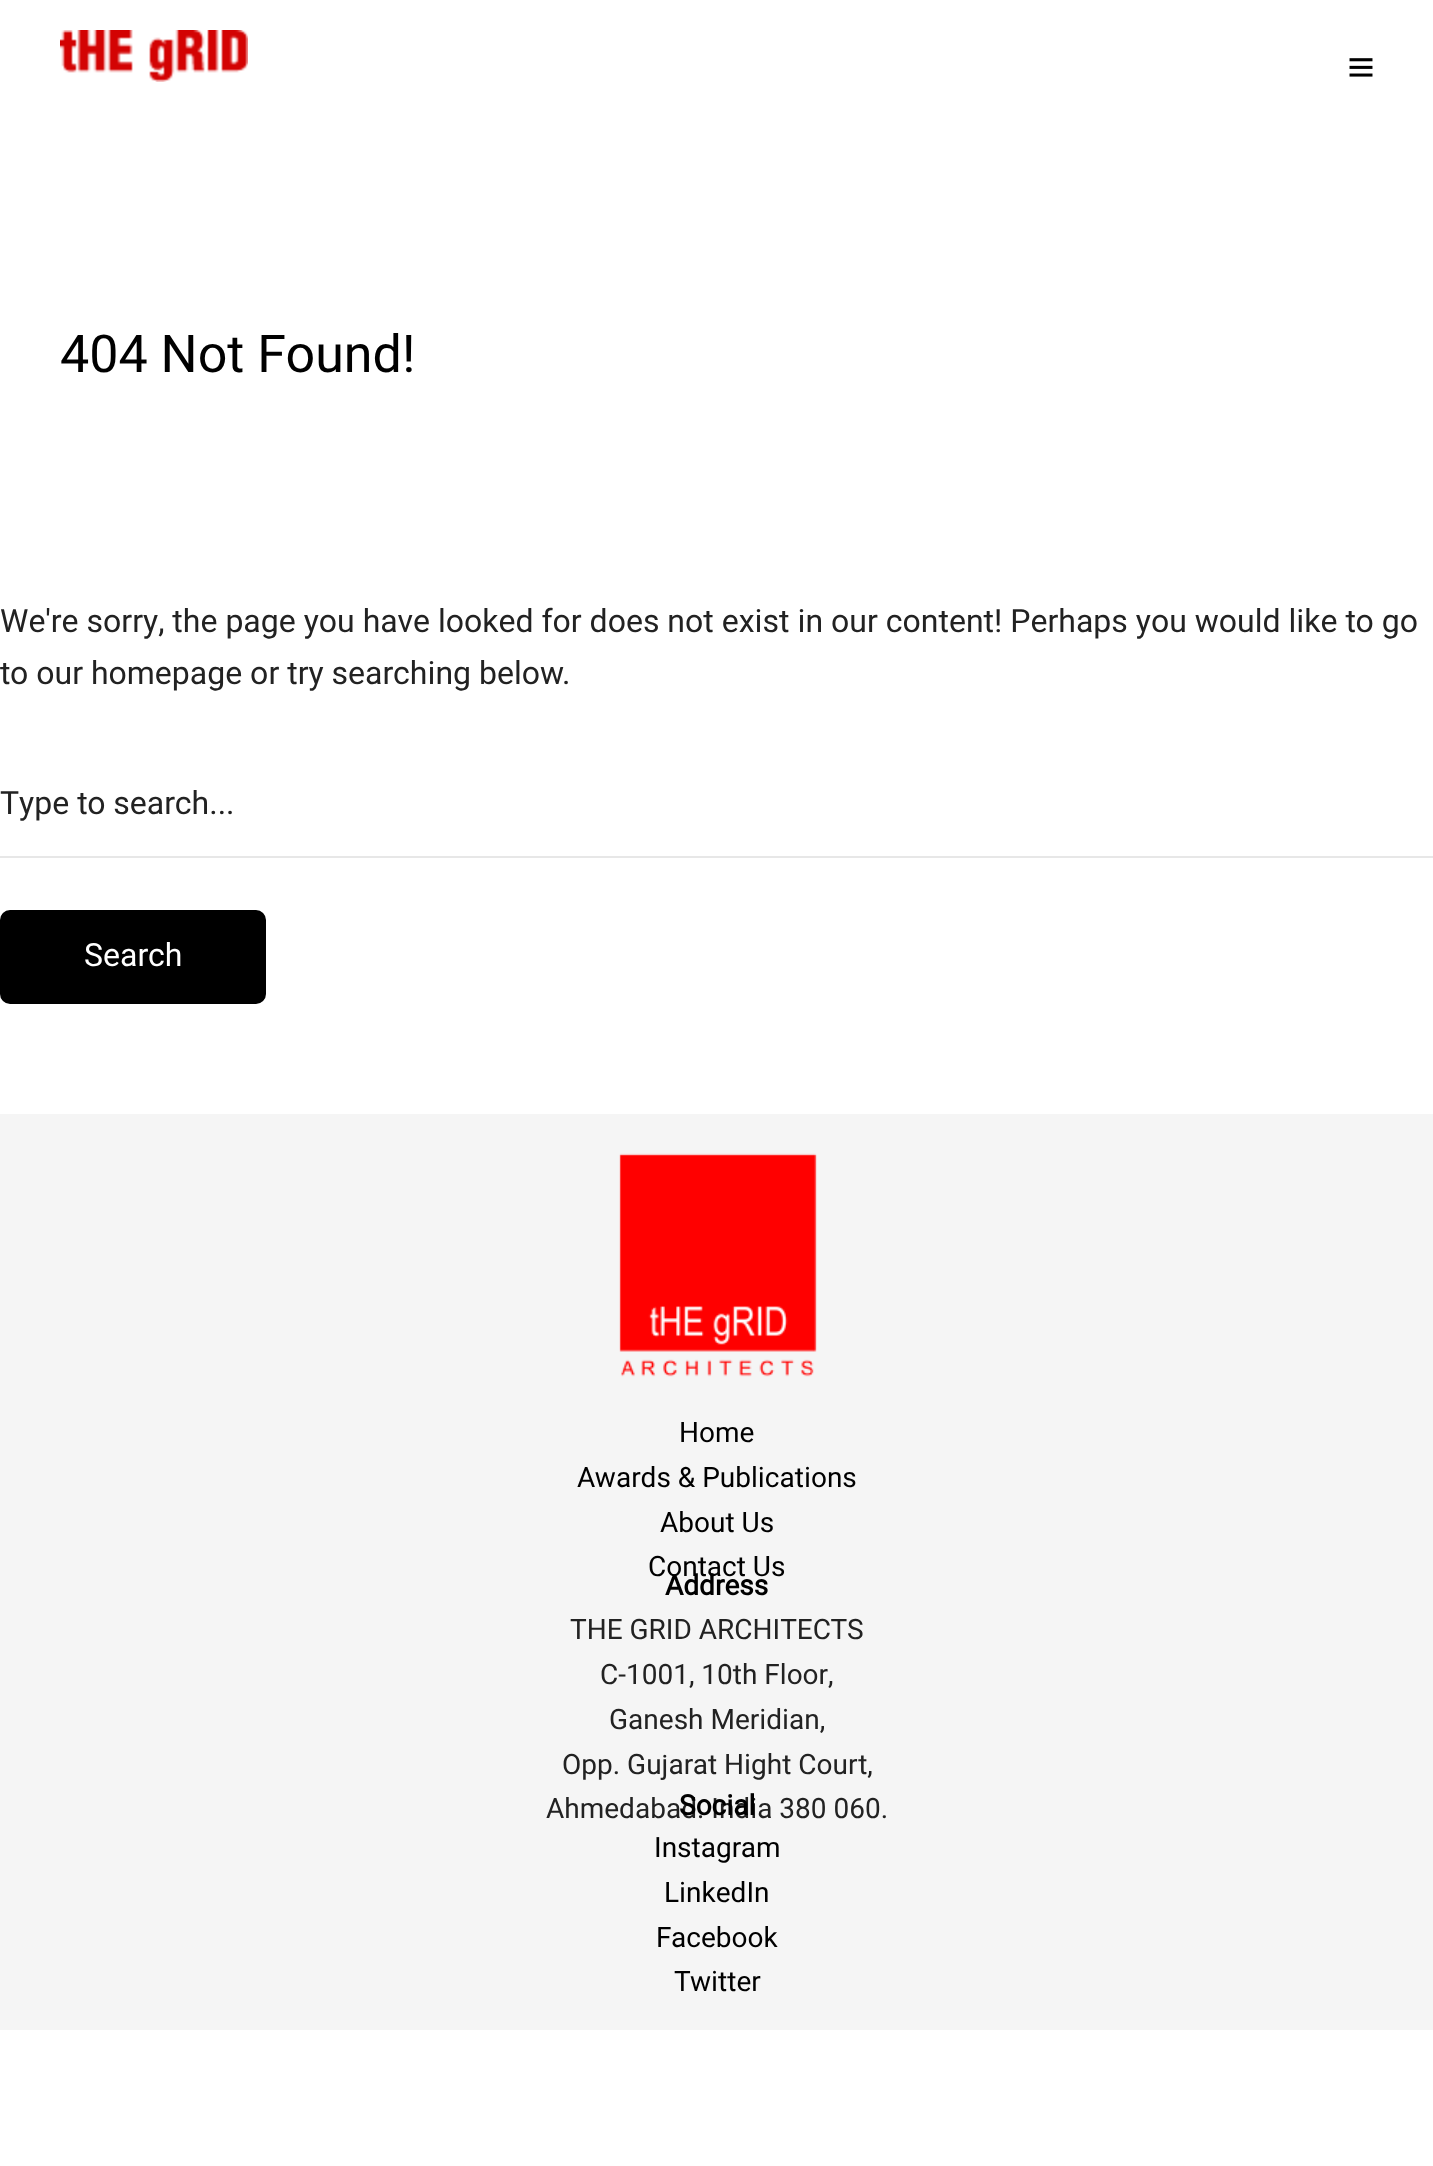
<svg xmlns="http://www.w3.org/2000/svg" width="1433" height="2166">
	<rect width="100%" height="100%" fill="#FFFFFF" />
	<image x="60" y="30" width="188" height="52" href="assets/img1.png" />
	<image x="1349" y="58" width="24" height="19" href="assets/img2.png" />
	<text x="60" y="372" font-family="Heebo" font-size="52" fill="#000000">404 Not Found!</text>
	<g font-family="Heebo" font-size="32" fill="#222222">
		<text x="0" y="632">We're sorry, the page you have looked for does not exist in our content! Perhaps you would like to go</text>
		<text x="0" y="684">to our homepage or try searching below.</text>
	</g>
	<rect x="0" y="856" width="1433" height="2" fill="#E7E7E7" />
	<text x="0" y="814" font-family="Heebo" font-size="32" fill="#222222">Type to search...</text>
	<rect x="2" y="912" width="262" height="90" rx="8" fill="#000000" stroke="#000000" stroke-width="4" />
	<text x="84" y="966" font-family="Heebo" font-size="32" fill="#FFFFFF">Search</text>
	<rect x="0" y="1114" width="1433" height="916" fill="#F5F5F5" />
	<image x="619" y="1153" width="198" height="224" href="assets/img3.png" />
	<g font-family="Heebo" font-size="28" fill="#000000">
		<text x="679" y="1442">Home</text>
		<text x="577" y="1487">Awards &amp; Publications</text>
		<text x="660" y="1532">About Us</text>
		<text x="648" y="1576">Contact Us</text>
	</g>
	<text x="665" y="1595" font-family="Heebo" font-size="28" font-weight="700" fill="#000000">Address</text>
	<g font-family="Heebo" font-size="28" fill="#222222">
		<text x="570" y="1639">THE GRID ARCHITECTS</text>
		<text x="600" y="1684">C-1001, 10th Floor,</text>
		<text x="609" y="1729">Ganesh Meridian,</text>
		<text x="562" y="1774">Opp. Gujarat Hight Court,</text>
		<text x="546" y="1818">Ahmedabad. India 380 060.</text>
	</g>
	<text x="679" y="1815" font-family="Heebo" font-size="28" font-weight="700" fill="#000000">Social</text>
	<g font-family="Heebo" font-size="28" fill="#000000">
		<text x="654" y="1857">Instagram</text>
		<text x="664" y="1902">LinkedIn</text>
		<text x="656" y="1947">Facebook</text>
		<text x="674" y="1991">Twitter</text>
	</g>
</svg>
